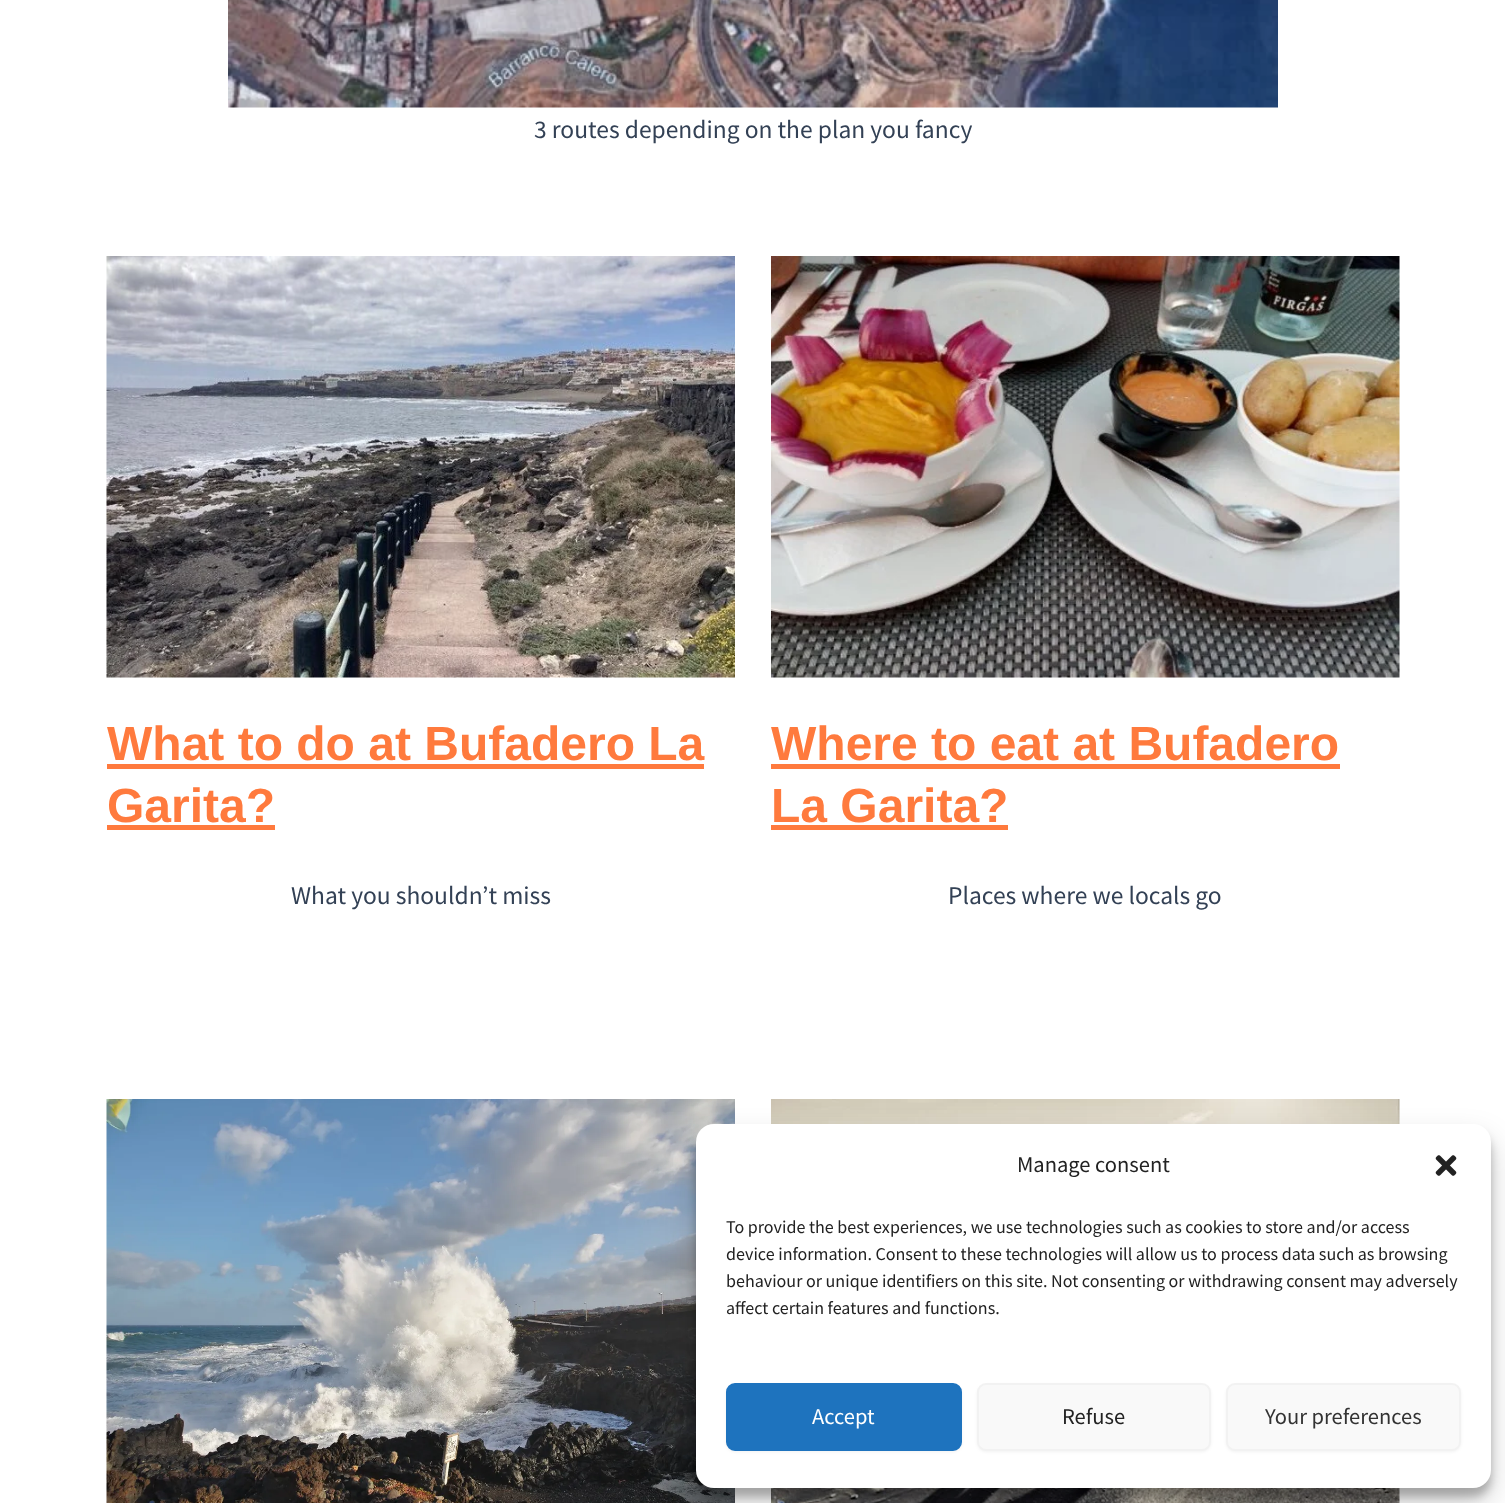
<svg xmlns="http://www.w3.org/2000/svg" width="1505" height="1503">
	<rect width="100%" height="100%" fill="#FFFFFF" />
	<image x="228" y="0" width="1050" height="108" href="assets/img1.png" />
	<text x="534" y="138" font-family="Source Sans Pro" font-size="25.5" fill="#334155">3 routes depending on the plan you fancy</text>
	<image x="106" y="256" width="629" height="422" href="assets/img2.png" />
	<text x="107" y="760" font-family="Liberation Sans" font-size="48" font-weight="700" fill="#FF7A3D">What to do at Bufadero La</text>
	<rect x="107" y="764" width="597" height="5" fill="#FF7A3D" />
	<text x="107" y="822" font-family="Liberation Sans" font-size="48" font-weight="700" fill="#FF7A3D">Garita?</text>
	<rect x="107" y="825" width="168" height="5" fill="#FF7A3D" />
	<text x="291" y="904" font-family="Source Sans Pro" font-size="25.5" fill="#334155">What you shouldn’t miss</text>
	<image x="771" y="256" width="629" height="422" href="assets/img3.png" />
	<text x="771" y="760" font-family="Liberation Sans" font-size="48" font-weight="700" fill="#FF7A3D">Where to eat at Bufadero</text>
	<rect x="771" y="764" width="569" height="5" fill="#FF7A3D" />
	<text x="771" y="822" font-family="Liberation Sans" font-size="48" font-weight="700" fill="#FF7A3D">La Garita?</text>
	<rect x="771" y="825" width="237" height="5" fill="#FF7A3D" />
	<text x="948" y="904" font-family="Source Sans Pro" font-size="25.5" fill="#334155">Places where we locals go</text>
	<image x="106" y="1099" width="629" height="404" href="assets/img4.png" />
	<image x="771" y="1099" width="629" height="404" href="assets/img5.png" />
	<rect x="696" y="1133" width="795" height="364" rx="18" fill="#000000" fill-opacity="0.23" filter="blur(4.5px)" />
	<rect x="696" y="1139" width="795" height="364" rx="18" fill="#000000" fill-opacity="0.19" filter="blur(15px)" />
	<rect x="696" y="1124" width="795" height="364" rx="18" fill="#FFFFFF" />
	<text x="1017" y="1172" font-family="Source Sans Pro" font-size="22.5" fill="#222222">Manage consent</text>
	<image x="1435" y="1155" width="22" height="21" href="assets/img6.png" />
	<g font-family="Source Sans Pro" font-size="18" fill="#222222">
		<text x="726" y="1233">To provide the best experiences, we use technologies such as cookies to store and/or access</text>
		<text x="726" y="1260">device information. Consent to these technologies will allow us to process data such as browsing</text>
		<text x="726" y="1287">behaviour or unique identifiers on this site. Not consenting or withdrawing consent may adversely</text>
		<text x="726" y="1314">affect certain features and functions.</text>
	</g>
	<rect x="726" y="1385" width="236" height="67" rx="9" fill="#000000" fill-opacity="0.05" filter="blur(1.5px)" />
	<rect x="727" y="1384" width="234" height="66" rx="8" fill="#1E73BE" stroke="#1E73BE" stroke-width="2" />
	<text x="812" y="1424" font-family="Source Sans Pro" font-size="22.5" fill="#FFFFFF">Accept</text>
	<rect x="977" y="1385" width="234" height="67" rx="9" fill="#000000" fill-opacity="0.05" filter="blur(1.5px)" />
	<rect x="978" y="1384" width="232" height="66" rx="8" fill="#F9F9F9" stroke="#F2F2F2" stroke-width="2" />
	<text x="1062" y="1424" font-family="Source Sans Pro" font-size="22.5" fill="#222222">Refuse</text>
	<rect x="1226" y="1385" width="235" height="67" rx="9" fill="#000000" fill-opacity="0.05" filter="blur(1.5px)" />
	<rect x="1227" y="1384" width="233" height="66" rx="8" fill="#F9F9F9" stroke="#F2F2F2" stroke-width="2" />
	<text x="1265" y="1424" font-family="Source Sans Pro" font-size="22.5" fill="#333333">Your preferences</text>
</svg>
